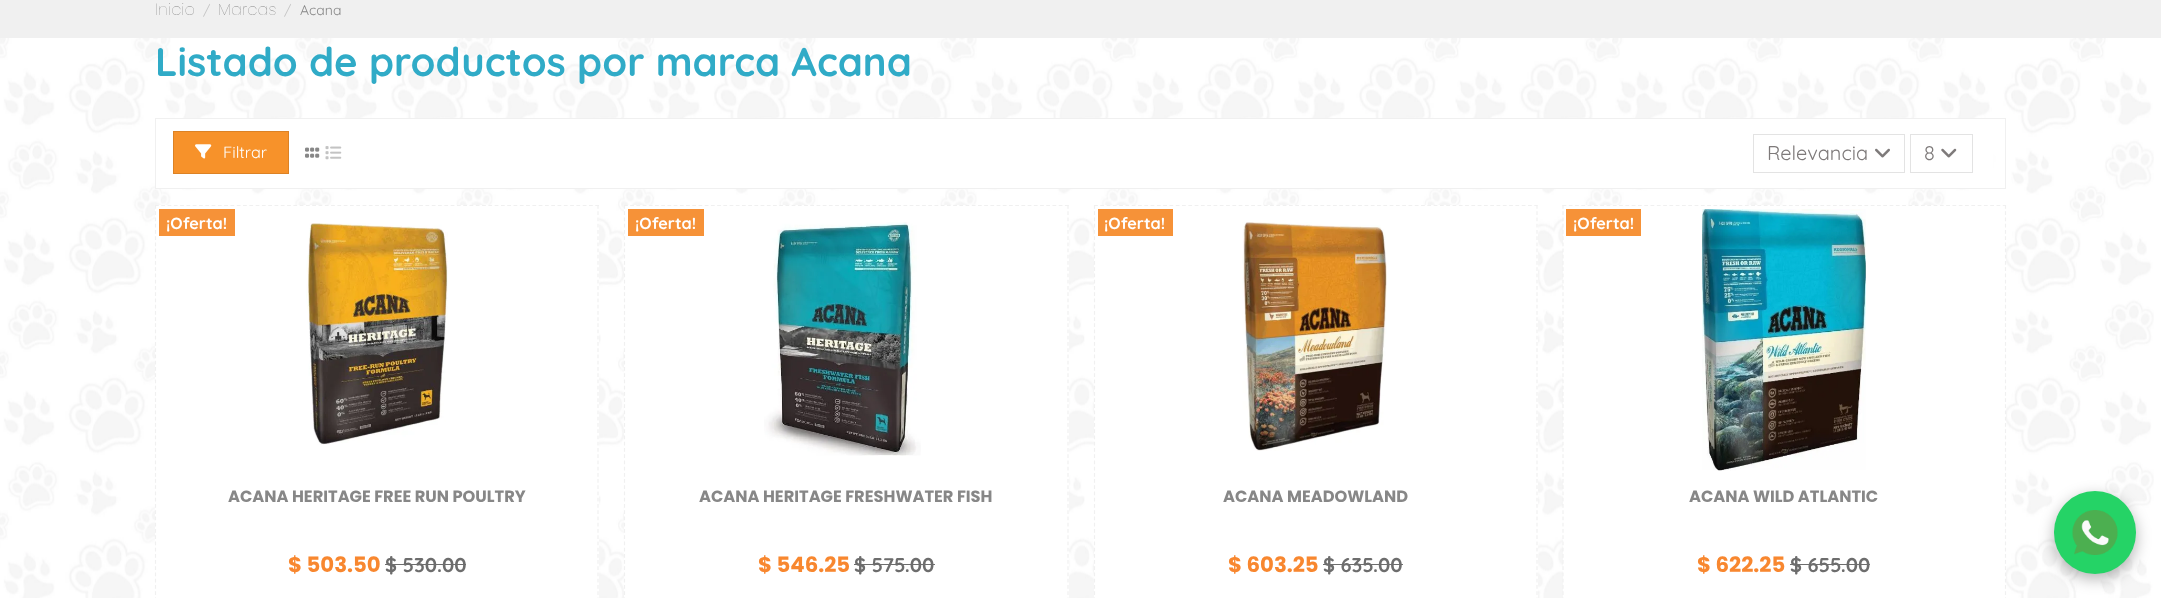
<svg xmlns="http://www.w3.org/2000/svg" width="2161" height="598">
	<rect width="100%" height="100%" fill="#FFFFFF" />
	<image x="0" y="38" width="2154" height="560" href="assets/img1.png" />
	<rect x="0" y="0" width="2161" height="38" fill="#F0F0F0" />
	<text x="155" y="15" font-family="Poppins" font-size="16.25" font-weight="200" fill="#878787">Inicio</text>
	<text x="203" y="15" font-family="Quicksand" font-size="14" fill="#C5C5C5">/</text>
	<text x="218" y="15" font-family="Poppins" font-size="16.25" font-weight="200" fill="#878787">Marcas</text>
	<text x="284" y="15" font-family="Quicksand" font-size="14" fill="#C5C5C5">/</text>
	<text x="300" y="15" font-family="Quicksand" font-size="14" fill="#878787">Acana</text>
	<text x="155" y="76" font-family="Quicksand" font-size="40" font-weight="700" fill="#30ABC7">Listado de productos por marca Acana</text>
	<rect x="156" y="119" width="1837" height="69" fill="#FFFFFF" />
	<rect x="155.5" y="118.5" width="1850" height="70" fill="none" stroke="#F0F0F0" />
	<rect x="173.5" y="131.5" width="115" height="42" fill="#F7922A" stroke="#DC8225" />
	<image x="195" y="144" width="17" height="15" href="assets/img2.png" />
	<text x="223" y="158" font-family="Quicksand" font-size="16.25" fill="#FFFFFF">Filtrar</text>
	<image x="305" y="147" width="15" height="11" href="assets/img3.png" />
	<image x="325" y="146" width="17" height="14" href="assets/img4.png" />
	<rect x="1753.5" y="134.5" width="151" height="38" fill="none" stroke="#E3E3E3" />
	<text x="1767" y="160" font-family="Quicksand" font-size="20" fill="#7E7A7A">Relevancia</text>
	<image x="1875" y="148" width="15" height="10" href="assets/img5.png" />
	<rect x="1910.5" y="134.5" width="62" height="38" fill="none" stroke="#E3E3E3" />
	<text x="1924" y="160" font-family="Quicksand" font-size="20" fill="#7E7A7A">8</text>
	<image x="1941" y="148" width="16" height="10" href="assets/img6.png" />
	<rect x="155" y="205" width="444" height="393" fill="#FFFFFF" />
	<path d="M155 205.5H599" fill="none" stroke="#F0F0F0" stroke-width="1.2" stroke-dasharray="3.75 2.54" />
	<path d="M598 205V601" fill="none" stroke="#F0F0F0" stroke-width="1.2" stroke-dasharray="3.75 2.48" />
	<path d="M155.5 205V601" fill="none" stroke="#F0F0F0" stroke-width="1.2" stroke-dasharray="3.75 2.48" />
	<rect x="159" y="209" width="76" height="27" fill="#F69238" />
	<text x="166" y="229" font-family="Quicksand" font-size="16.25" font-weight="700" fill="#FFFFFF">¡Oferta!</text>
	<image x="306" y="223" width="142" height="222" href="assets/img7.png" />
	<text x="228" y="502" font-family="Poppins" font-size="16.25" font-weight="700" fill="#878787">ACANA HERITAGE FREE RUN POULTRY</text>
	<text x="288" y="572" font-family="Poppins" font-size="21.25" font-weight="700" fill="#F8872F">$ 503.50</text>
	<text x="385" y="572" font-family="Quicksand" font-size="20" font-weight="700" fill="#6D6D6D">$ 530.00</text>
	<rect x="385" y="564" width="81" height="1" fill="#6D6D6D" />
	<rect x="624" y="205" width="445" height="393" fill="#FFFFFF" />
	<path d="M624 205.5H1069" fill="none" stroke="#F0F0F0" stroke-width="1.2" stroke-dasharray="3.75 2.46" />
	<path d="M1068 205V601" fill="none" stroke="#F0F0F0" stroke-width="1.2" stroke-dasharray="3.75 2.48" />
	<path d="M624.5 205V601" fill="none" stroke="#F0F0F0" stroke-width="1.2" stroke-dasharray="3.75 2.48" />
	<rect x="628" y="209" width="76" height="27" fill="#F69238" />
	<text x="635" y="229" font-family="Quicksand" font-size="16.25" font-weight="700" fill="#FFFFFF">¡Oferta!</text>
	<image x="764" y="222" width="157" height="234" href="assets/img8.png" />
	<text x="699" y="502" font-family="Poppins" font-size="16.25" font-weight="700" fill="#878787">ACANA HERITAGE FRESHWATER FISH</text>
	<text x="758" y="572" font-family="Poppins" font-size="21.25" font-weight="700" fill="#F8872F">$ 546.25</text>
	<text x="854" y="572" font-family="Quicksand" font-size="20" font-weight="700" fill="#6D6D6D">$ 575.00</text>
	<rect x="854" y="564" width="81" height="1" fill="#6D6D6D" />
	<rect x="1094" y="205" width="444" height="393" fill="#FFFFFF" />
	<path d="M1094 205.5H1537.5" fill="none" stroke="#F0F0F0" stroke-width="1.2" stroke-dasharray="3.75 2.54" />
	<path d="M1537 205V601" fill="none" stroke="#F0F0F0" stroke-width="1.2" stroke-dasharray="3.75 2.48" />
	<path d="M1094.5 205V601" fill="none" stroke="#F0F0F0" stroke-width="1.2" stroke-dasharray="3.75 2.48" />
	<rect x="1098" y="209" width="75" height="27" fill="#F69238" />
	<text x="1104" y="229" font-family="Quicksand" font-size="16.25" font-weight="700" fill="#FFFFFF">¡Oferta!</text>
	<image x="1242" y="222" width="145" height="229" href="assets/img9.png" />
	<text x="1223" y="502" font-family="Poppins" font-size="16.25" font-weight="700" fill="#878787">ACANA MEADOWLAND</text>
	<text x="1228" y="572" font-family="Poppins" font-size="21.25" font-weight="700" fill="#F8872F">$ 603.25</text>
	<text x="1323" y="572" font-family="Quicksand" font-size="20" font-weight="700" fill="#6D6D6D">$ 635.00</text>
	<rect x="1323" y="564" width="80" height="1" fill="#6D6D6D" />
	<rect x="1563" y="205" width="443" height="393" fill="#FFFFFF" />
	<path d="M1562.5 205.5H2006" fill="none" stroke="#F0F0F0" stroke-width="1.2" stroke-dasharray="3.75 2.54" />
	<path d="M2005.5 205V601" fill="none" stroke="#F0F0F0" stroke-width="1.2" stroke-dasharray="3.75 2.48" />
	<path d="M1563 205V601" fill="none" stroke="#F0F0F0" stroke-width="1.2" stroke-dasharray="3.75 2.48" />
	<rect x="1566" y="209" width="75" height="27" fill="#F69238" />
	<text x="1573" y="229" font-family="Quicksand" font-size="16.25" font-weight="700" fill="#FFFFFF">¡Oferta!</text>
	<image x="1702" y="209" width="164" height="262" href="assets/img10.png" />
	<text x="1689" y="502" font-family="Poppins" font-size="16.25" font-weight="700" fill="#878787">ACANA WILD ATLANTIC</text>
	<text x="1697" y="572" font-family="Poppins" font-size="21.25" font-weight="700" fill="#F8872F">$ 622.25</text>
	<text x="1790" y="572" font-family="Quicksand" font-size="20" font-weight="700" fill="#6D6D6D">$ 655.00</text>
	<rect x="1790" y="564" width="80" height="1" fill="#6D6D6D" />
	<rect x="2054" y="496" width="82" height="83" rx="41" fill="#000000" fill-opacity="0.3" filter="blur(7.5px)" />
	<rect x="2054" y="491" width="82" height="83" rx="41" fill="#25D366" />
	<image x="2072" y="510" width="46" height="45" href="assets/img11.png" />
</svg>
